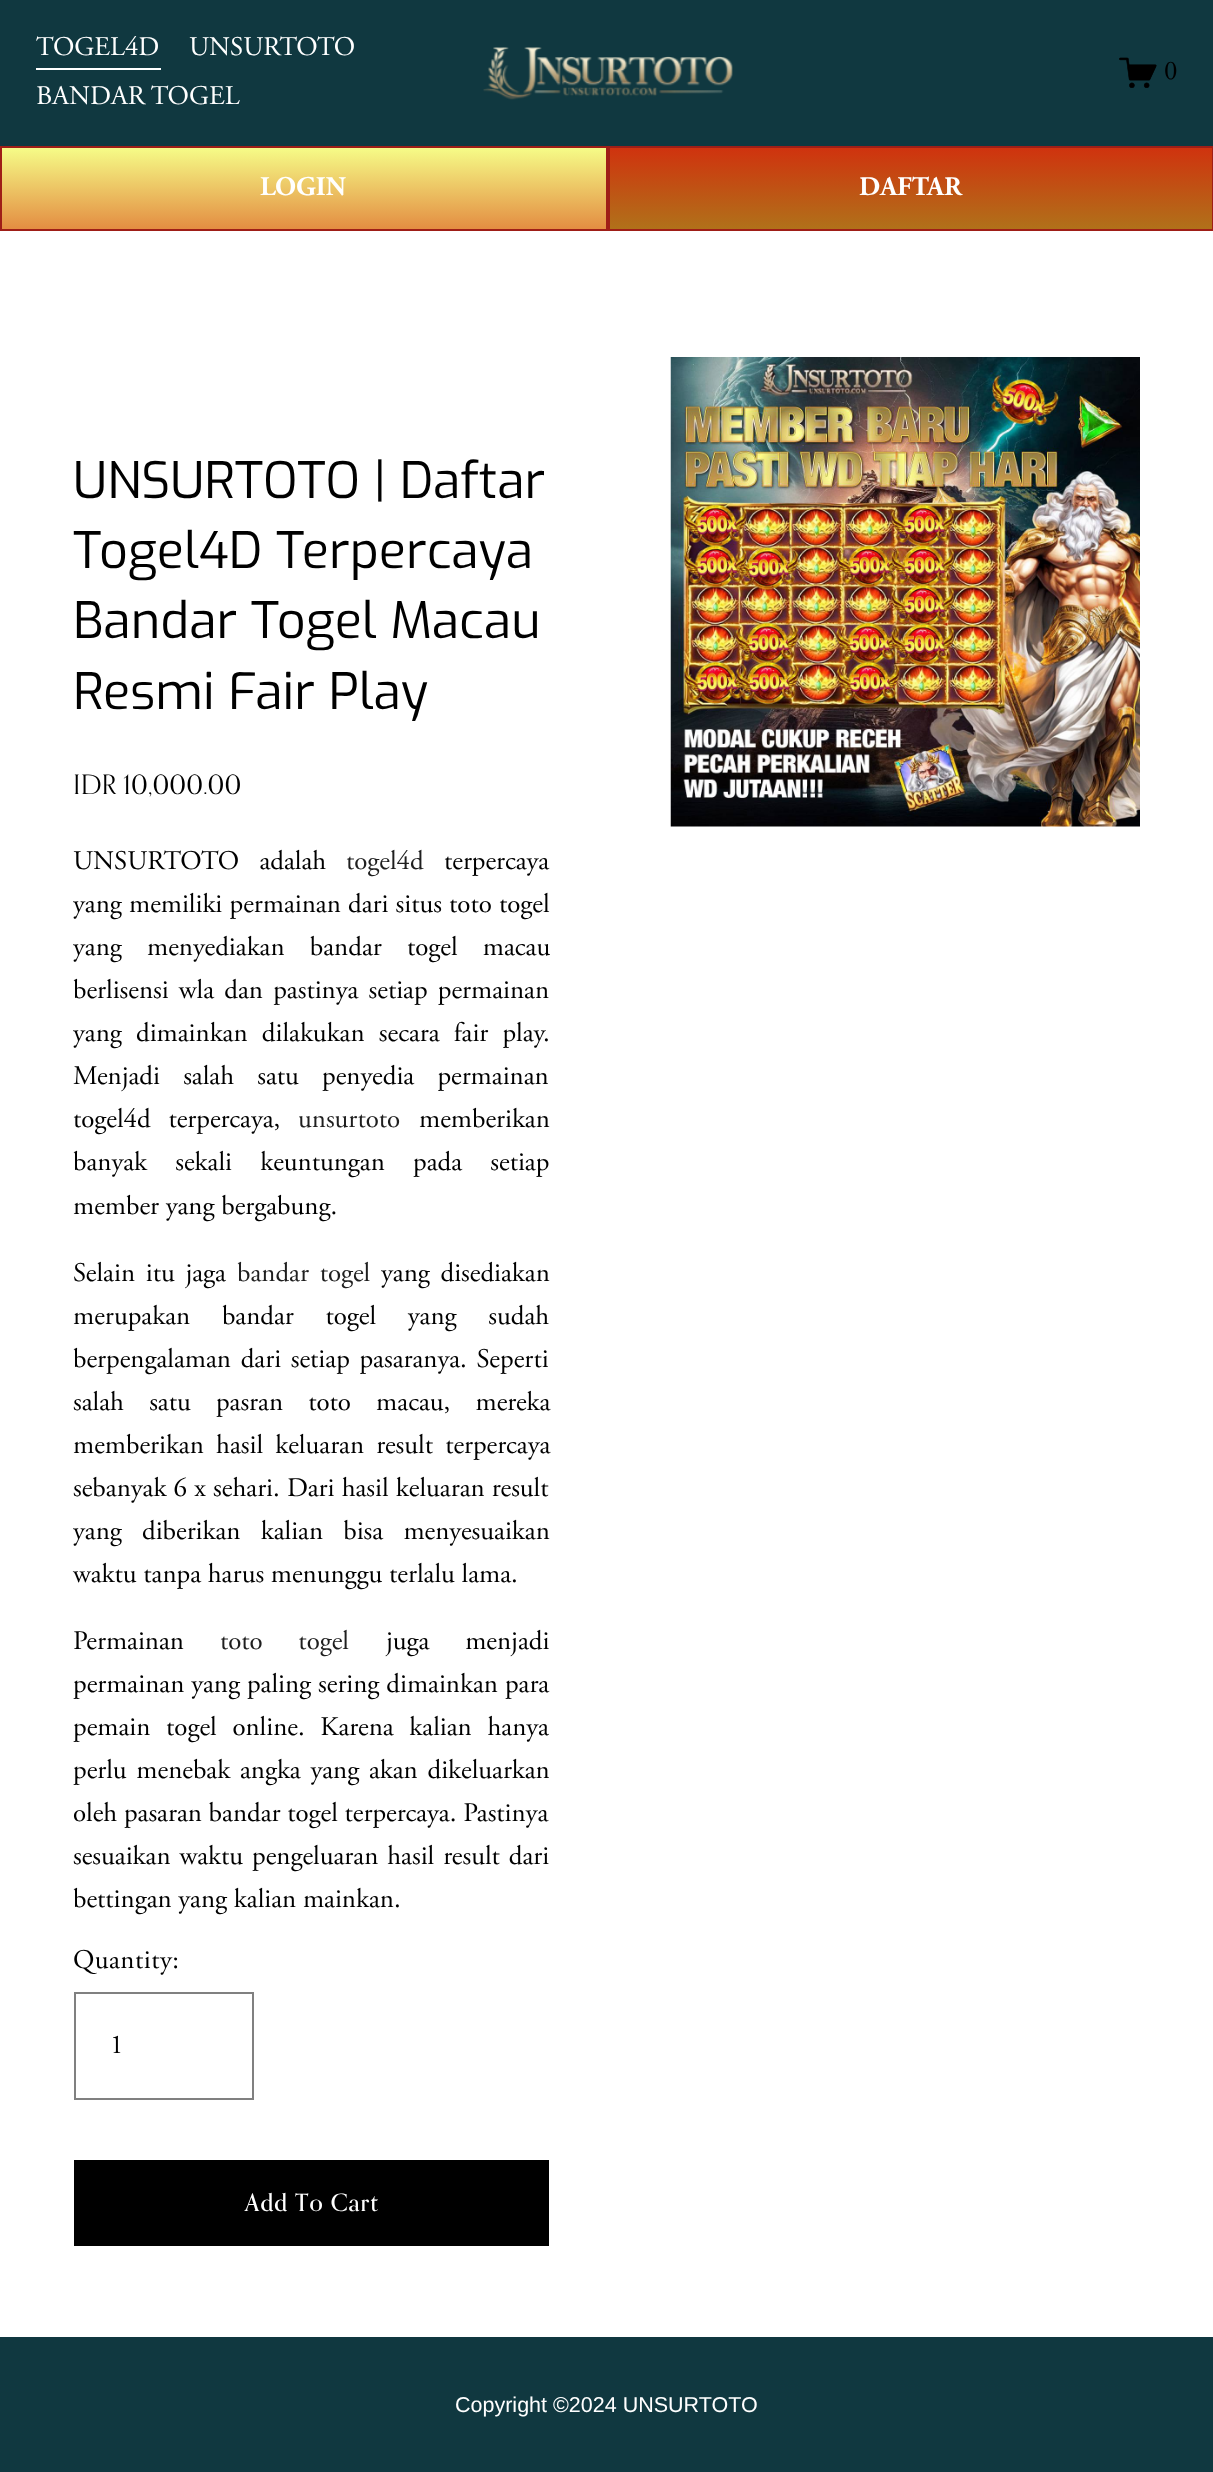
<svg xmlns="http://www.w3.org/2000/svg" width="1213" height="2472">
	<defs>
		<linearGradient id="g1" gradientUnits="userSpaceOnUse" x1="304" y1="147" x2="304" y2="230"><stop offset="0" stop-color="#F6FD88" /><stop offset="1" stop-color="#E38C41" /></linearGradient>
		<linearGradient id="g2" gradientUnits="userSpaceOnUse" x1="911" y1="147" x2="911" y2="230"><stop offset="0" stop-color="#D0320E" /><stop offset="1" stop-color="#B0721A" /></linearGradient>
	</defs>
	<rect width="100%" height="100%" fill="#FFFFFF" />
	<rect x="0" y="0" width="1213" height="146" fill="#103840" />
	<rect x="36" y="68" width="125" height="2" fill="#FFFFFF" />
	<g font-family="Adobe Garamond" font-size="26.9" fill="#FFFFFF">
		<text x="36" y="55">TOGEL4D</text>
		<text x="189" y="55">UNSURTOTO</text>
		<text x="36" y="104">BANDAR TOGEL</text>
	</g>
	<image x="483" y="47" width="250" height="53" href="assets/img1.png" />
	<image x="1119" y="57" width="38" height="31" href="assets/img2.png" />
	<text x="1164" y="79" font-family="Adobe Garamond" font-size="26.9" fill="#000000">0</text>
	<rect x="2" y="148" width="604" height="81" fill="url(#g1)" />
	<rect x="1" y="147" width="606" height="83" fill="none" stroke="#9F1E17" stroke-width="2" />
	<text x="260" y="195" font-family="Adobe Garamond" font-size="26.9" font-weight="700" fill="#FFFFFF">LOGIN</text>
	<rect x="610" y="148" width="602" height="81" fill="url(#g2)" />
	<rect x="609" y="147" width="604" height="83" fill="none" stroke="#9F1E17" stroke-width="2" />
	<text x="859" y="195" font-family="Adobe Garamond" font-size="26.9" font-weight="700" fill="#FFFFFF">DAFTAR</text>
	<g font-family="Exo" font-size="50.25" fill="#000000">
		<text x="73" y="498">UNSURTOTO | Daftar</text>
		<text x="73" y="568">Togel4D Terpercaya</text>
		<text x="73" y="638">Bandar Togel Macau</text>
		<text x="73" y="709">Resmi Fair Play</text>
	</g>
	<text x="73" y="794" font-family="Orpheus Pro" font-size="26.9" fill="#000000">IDR 10,000.00</text>
	<text x="73" y="869" word-spacing="13.5" font-family="Adobe Garamond" font-size="26.9" fill="#000000">UNSURTOTO adalah</text>
	<text x="346" y="869" font-family="Adobe Garamond" font-size="26.9" fill="#1F1F1F">togel4d</text>
	<g font-family="Adobe Garamond" font-size="26.9" fill="#000000">
		<text x="444" y="869">terpercaya</text>
		<text x="73" y="912" word-spacing="0.5">yang memiliki permainan dari situs toto togel</text>
		<text x="73" y="955" word-spacing="18.5">yang menyediakan bandar togel macau</text>
		<text x="73" y="998" word-spacing="3.5">berlisensi wla dan pastinya setiap permainan</text>
		<text x="73" y="1041" word-spacing="7.5">yang dimainkan dilakukan secara fair play.</text>
		<text x="73" y="1084" word-spacing="16.5">Menjadi salah satu penyedia permainan</text>
		<text x="73" y="1127" word-spacing="11">togel4d terpercaya,</text>
	</g>
	<text x="298" y="1127" font-family="Adobe Garamond" font-size="26.9" fill="#1F1F1F">unsurtoto</text>
	<g font-family="Adobe Garamond" font-size="26.9" fill="#000000">
		<text x="419" y="1127">memberikan</text>
		<text x="73" y="1170" word-spacing="21.5">banyak sekali keuntungan pada setiap</text>
		<text x="73" y="1214">member yang bergabung.</text>
		<text x="73" y="1281" word-spacing="4">Selain itu jaga</text>
	</g>
	<text x="237" y="1281" word-spacing="4" font-family="Adobe Garamond" font-size="26.9" fill="#1F1F1F">bandar togel</text>
	<g font-family="Adobe Garamond" font-size="26.9" fill="#000000">
		<text x="381" y="1281" word-spacing="4">yang disediakan</text>
		<text x="73" y="1324" word-spacing="25">merupakan bandar togel yang sudah</text>
		<text x="73" y="1367" word-spacing="3">berpengalaman dari setiap pasaranya. Seperti</text>
		<text x="73" y="1410" word-spacing="18.5">salah satu pasran toto macau, mereka</text>
		<text x="73" y="1453" word-spacing="5.5">memberikan hasil keluaran result terpercaya</text>
		<text x="73" y="1496" word-spacing="0.5">sebanyak 6 x sehari. Dari hasil keluaran result</text>
		<text x="73" y="1539" word-spacing="13.5">yang diberikan kalian bisa menyesuaikan</text>
		<text x="73" y="1582">waktu tanpa harus menunggu terlalu lama.</text>
		<text x="73" y="1649">Permainan</text>
	</g>
	<text x="220" y="1649" word-spacing="29" font-family="Adobe Garamond" font-size="26.9" fill="#1F1F1F">toto togel</text>
	<g font-family="Adobe Garamond" font-size="26.9" fill="#000000">
		<text x="386" y="1649" word-spacing="29">juga menjadi</text>
		<text x="73" y="1692" word-spacing="0.25">permainan yang paling sering dimainkan para</text>
		<text x="73" y="1735" word-spacing="9">pemain togel online. Karena kalian hanya</text>
		<text x="73" y="1778" word-spacing="3">perlu menebak angka yang akan dikeluarkan</text>
		<text x="73" y="1821">oleh pasaran bandar togel terpercaya. Pastinya</text>
		<text x="73" y="1864" word-spacing="2.25">sesuaikan waktu pengeluaran hasil result dari</text>
		<text x="73" y="1907">bettingan yang kalian mainkan.</text>
	</g>
	<text x="73" y="1968" font-family="Adobe Garamond" font-size="26.9" letter-spacing="0.5" fill="#000000">Quantity:</text>
	<rect x="75" y="1993" width="178" height="106" fill="none" stroke="#808080" stroke-width="2" />
	<text x="110" y="2053" font-family="Adobe Garamond" font-size="26.9" fill="#000000">1</text>
	<rect x="74" y="2160" width="475" height="86" fill="#000000" />
	<text x="245" y="2211" font-family="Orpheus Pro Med" font-size="24" font-weight="500" letter-spacing="1" fill="#FFFFFF">Add To Cart</text>
	<image x="670" y="357" width="470" height="470" href="assets/img3.png" />
	<rect x="0" y="2337" width="1213" height="135" fill="#103840" />
	<text x="455" y="2412" font-family="Liberation Sans" font-size="21.5" fill="#FFFFFF">Copyright ©2024 UNSURTOTO</text>
</svg>
